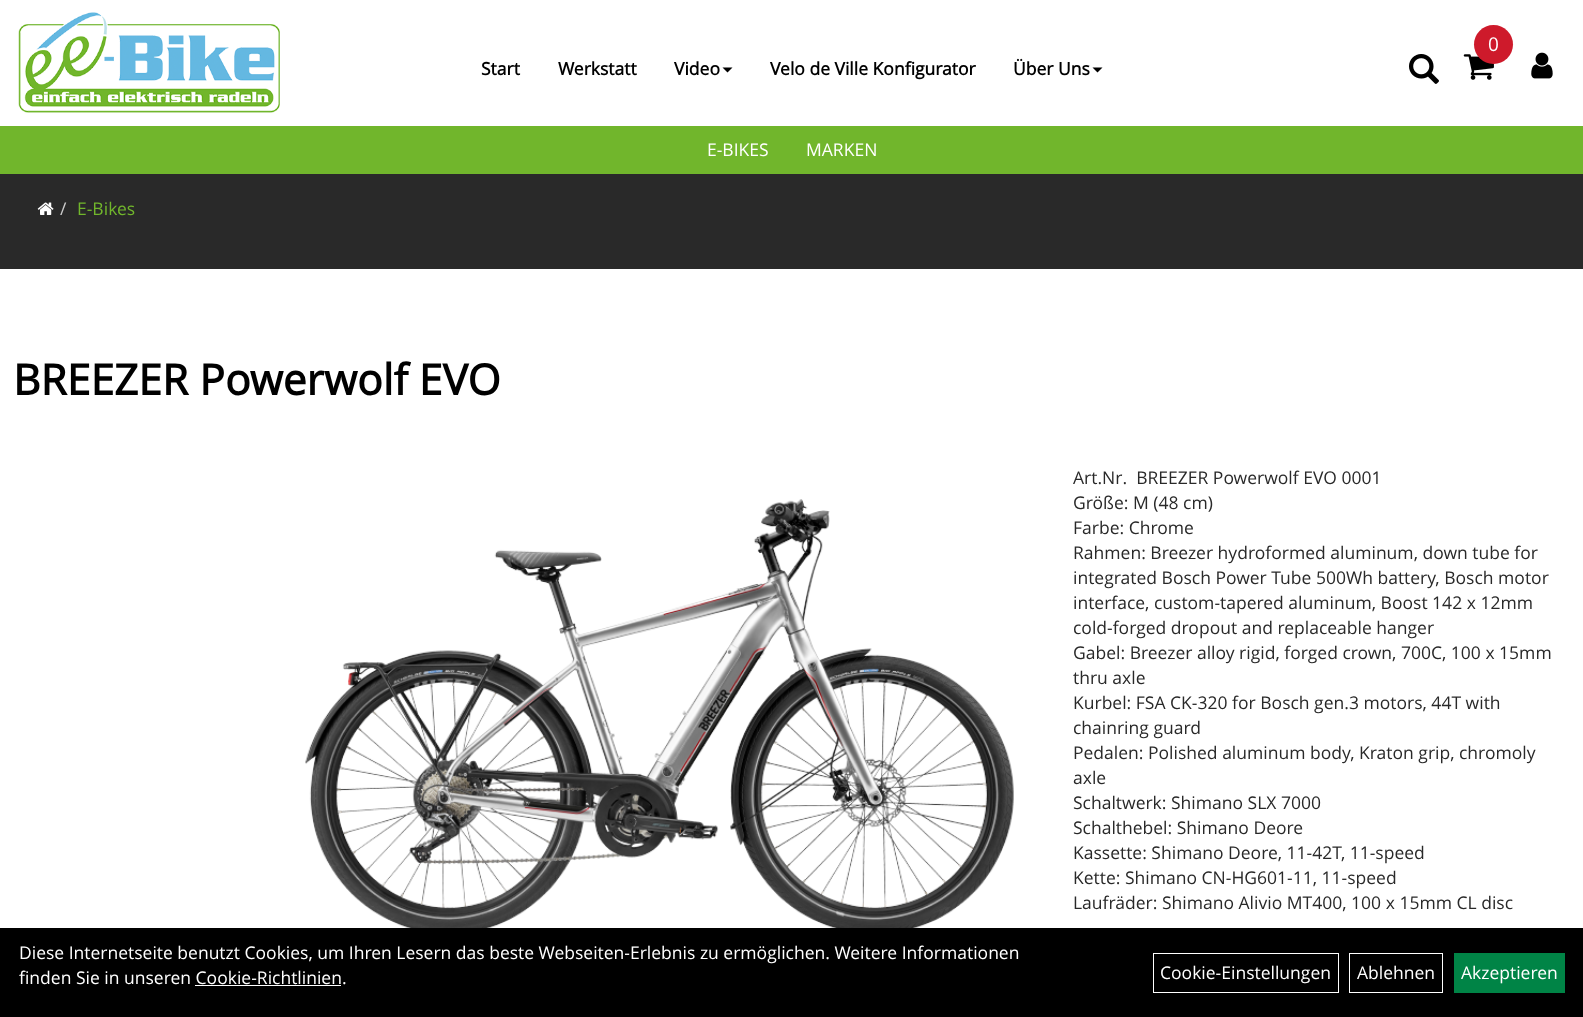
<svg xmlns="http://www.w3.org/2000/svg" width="1583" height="1017">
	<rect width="100%" height="100%" fill="#FFFFFF" />
	<image x="18" y="12" width="262" height="101" href="assets/img1.png" />
	<image x="1463" y="54" width="31" height="26" href="assets/img2.png" />
	<circle cx="1493.5" cy="44.5" r="19.5" fill="#CE1A2B" />
	<text x="1488" y="51" font-family="Open Sans" font-size="19" fill="#FFFFFF">0</text>
	<image x="1409" y="54" width="30" height="30" href="assets/img3.png" />
	<image x="1531" y="52" width="22" height="27" href="assets/img4.png" />
	<g font-family="Open Sans" font-size="17.5" font-weight="700" fill="#000000">
		<text x="481" y="75">Start</text>
		<text x="558" y="75">Werkstatt</text>
		<text x="674" y="75">Video</text>
	</g>
	<path d="M722.5 67.5H732.5L727.5 72.5Z" fill="#000000" />
	<g font-family="Open Sans" font-size="17.5" font-weight="700" fill="#000000">
		<text x="770" y="75">Velo de Ville Konfigurator</text>
		<text x="1013" y="75">Über Uns</text>
	</g>
	<path d="M1092.5 67.5H1102.5L1097.5 72.5Z" fill="#000000" />
	<rect x="0" y="126" width="1583" height="48" fill="#71B62C" />
	<g font-family="Open Sans" font-size="17.5" fill="#FFFFFF">
		<text x="707" y="156">E-BIKES</text>
		<text x="806" y="156">MARKEN</text>
	</g>
	<rect x="0" y="174" width="1583" height="95" fill="#292929" />
	<image x="37" y="202" width="17" height="13" href="assets/img5.png" />
	<text x="60" y="215" font-family="Open Sans" font-size="17.5" fill="#CCCCCC">/</text>
	<text x="77" y="215" font-family="Open Sans" font-size="17.5" fill="#71B62C">E-Bikes</text>
	<text x="13" y="395" font-family="Open Sans" font-size="42.5" font-weight="700" fill="#000000">BREEZER Powerwolf EVO</text>
	<image x="305" y="499" width="709" height="429" href="assets/img6.png" />
	<g font-family="Open Sans" font-size="17.5" fill="#292929">
		<text x="1073" y="484" xml:space="preserve">Art.Nr.  BREEZER Powerwolf EVO 0001</text>
		<text x="1073" y="509">Größe: M (48 cm)</text>
		<text x="1073" y="534">Farbe: Chrome</text>
		<text x="1073" y="559">Rahmen: Breezer hydroformed aluminum, down tube for</text>
		<text x="1073" y="584">integrated Bosch Power Tube 500Wh battery, Bosch motor</text>
		<text x="1073" y="609">interface, custom-tapered aluminum, Boost 142 x 12mm</text>
		<text x="1073" y="634">cold-forged dropout and replaceable hanger</text>
		<text x="1073" y="659">Gabel: Breezer alloy rigid, forged crown, 700C, 100 x 15mm</text>
		<text x="1073" y="684">thru axle</text>
		<text x="1073" y="709">Kurbel: FSA CK-320 for Bosch gen.3 motors, 44T with</text>
		<text x="1073" y="734">chainring guard</text>
		<text x="1073" y="759">Pedalen: Polished aluminum body, Kraton grip, chromoly</text>
		<text x="1073" y="784">axle</text>
		<text x="1073" y="809">Schaltwerk: Shimano SLX 7000</text>
		<text x="1073" y="834">Schalthebel: Shimano Deore</text>
		<text x="1073" y="859">Kassette: Shimano Deore, 11-42T, 11-speed</text>
		<text x="1073" y="884">Kette: Shimano CN-HG601-11, 11-speed</text>
		<text x="1073" y="909">Laufräder: Shimano Alivio MT400, 100 x 15mm CL disc</text>
	</g>
	<rect x="0" y="928" width="1583" height="89" fill="#000000" />
	<g font-family="Open Sans" font-size="17.5" fill="#FFFFFF">
		<text x="19" y="959">Diese Internetseite benutzt Cookies, um Ihren Lesern das beste Webseiten-Erlebnis zu ermöglichen. Weitere Informationen</text>
		<text x="19" y="984">finden Sie in unseren Cookie-Richtlinien.</text>
	</g>
	<rect x="195" y="985" width="146" height="1" fill="#FFFFFF" />
	<rect x="1153.5" y="953.5" width="185" height="39" fill="none" stroke="#FFFFFF" />
	<text x="1160" y="979" font-family="Open Sans" font-size="17.5" fill="#FFFFFF">Cookie-Einstellungen</text>
	<rect x="1349.5" y="953.5" width="93" height="39" fill="none" stroke="#FFFFFF" />
	<text x="1357" y="979" font-family="Open Sans" font-size="17.5" fill="#FFFFFF">Ablehnen</text>
	<rect x="1454" y="953" width="111" height="40" fill="#008446" />
	<text x="1461" y="979" font-family="Open Sans" font-size="17.5" fill="#FFFFFF">Akzeptieren</text>
</svg>
